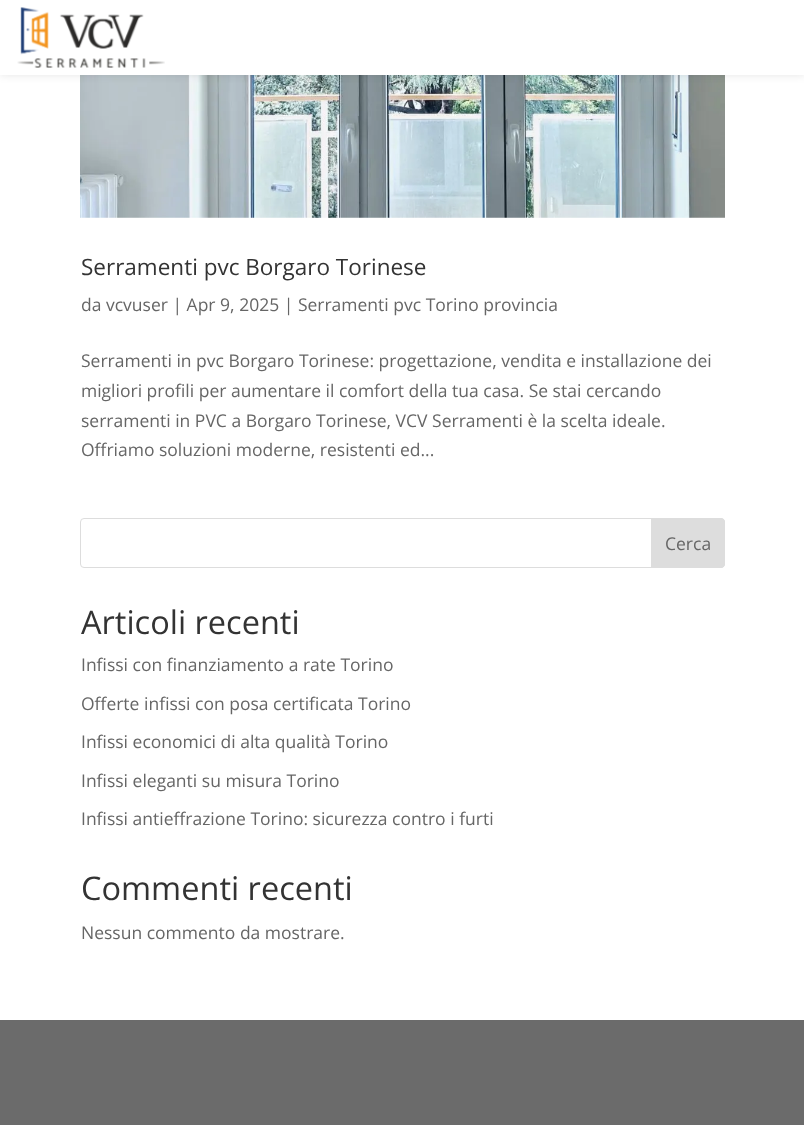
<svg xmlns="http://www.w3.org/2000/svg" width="804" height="1125">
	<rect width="100%" height="100%" fill="#FFFFFF" />
	<image x="80" y="75" width="645" height="143" href="assets/img2.png" />
	<rect x="0" y="0" width="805" height="75" fill="#000000" fill-opacity="0.1" filter="blur(4.5px)" />
	<rect x="0" y="0" width="804" height="75" fill="#FFFFFF" />
	<image x="17" y="7" width="148" height="61" href="assets/img1.png" />
	<text x="81" y="275" font-family="Open Sans" font-size="22.5" fill="#333333">Serramenti pvc Borgaro Torinese</text>
	<g font-family="Open Sans" font-size="17.5" fill="#666666">
		<text x="81" y="311">da vcvuser | Apr 9, 2025 | Serramenti pvc Torino provincia</text>
		<text x="81" y="367">Serramenti in pvc Borgaro Torinese: progettazione, vendita e installazione dei</text>
		<text x="81" y="397">migliori profili per aumentare il comfort della tua casa. Se stai cercando</text>
		<text x="81" y="427">serramenti in PVC a Borgaro Torinese, VCV Serramenti è la scelta ideale.</text>
		<text x="81" y="456">Offriamo soluzioni moderne, resistenti ed...</text>
	</g>
	<rect x="80.5" y="518.5" width="644" height="49" rx="3.5" fill="none" stroke="#DDDDDD" />
	<path d="M651.5 518.5H721C723 518.5 724.5 520 724.5 522V564C724.5 566 723 567.5 721 567.5H651.5Z" fill="#DDDDDD" stroke="#DDDDDD" />
	<text x="665" y="550" font-family="Open Sans" font-size="17.5" fill="#666666">Cerca</text>
	<text x="81" y="634" font-family="Open Sans" font-size="32.5" fill="#333333">Articoli recenti</text>
	<g font-family="Open Sans" font-size="17.5" fill="#666666">
		<text x="81" y="671">Infissi con finanziamento a rate Torino</text>
		<text x="81" y="710">Offerte infissi con posa certificata Torino</text>
		<text x="81" y="748">Infissi economici di alta qualità Torino</text>
		<text x="81" y="787">Infissi eleganti su misura Torino</text>
		<text x="81" y="825">Infissi antieffrazione Torino: sicurezza contro i furti</text>
	</g>
	<text x="81" y="900" font-family="Open Sans" font-size="32.5" fill="#333333">Commenti recenti</text>
	<text x="81" y="939" font-family="Open Sans" font-size="17.5" fill="#666666">Nessun commento da mostrare.</text>
	<rect x="0" y="1020" width="804" height="105" fill="#6B6B6B" />
</svg>
